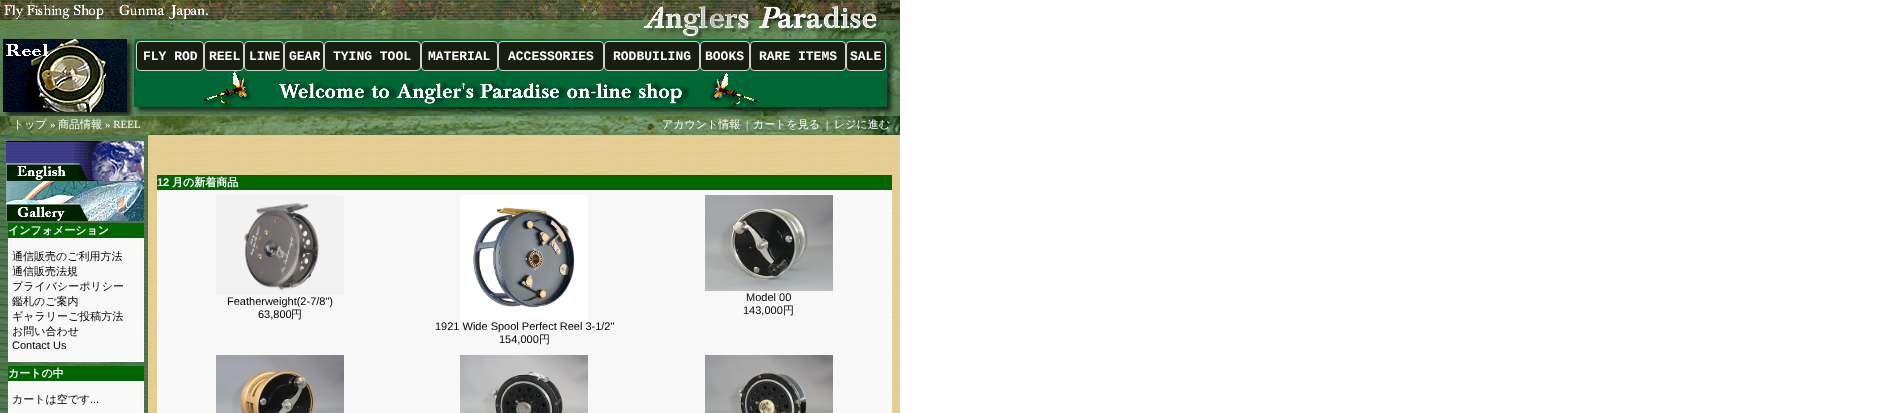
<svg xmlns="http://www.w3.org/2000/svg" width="1880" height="413">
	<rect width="100%" height="100%" fill="#FFFFFF" />
	<image x="0" y="135" width="900" height="278" href="assets/img1.png" />
	<image x="0" y="0" width="900" height="39" href="assets/img2.png" />
	<image x="0" y="39" width="134" height="77" href="assets/img3.png" />
	<image x="134" y="39" width="766" height="32" href="assets/img4.png" />
	<rect x="136.5" y="41.5" width="67" height="29" rx="3.5" fill="#191E11" stroke="#D3D3D3" />
	<text x="143" y="60" font-family="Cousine" font-size="13" font-weight="700" fill="#FFFFFF">FLY ROD</text>
	<rect x="204.5" y="41.5" width="39" height="29" rx="3.5" fill="#191E11" stroke="#D3D3D3" />
	<text x="209" y="60" font-family="Cousine" font-size="13" font-weight="700" fill="#FFFFFF">REEL</text>
	<rect x="244.5" y="41.5" width="39" height="29" rx="3.5" fill="#191E11" stroke="#D3D3D3" />
	<text x="249" y="60" font-family="Cousine" font-size="13" font-weight="700" fill="#FFFFFF">LINE</text>
	<rect x="284.5" y="41.5" width="39" height="29" rx="3.5" fill="#191E11" stroke="#D3D3D3" />
	<text x="289" y="60" font-family="Cousine" font-size="13" font-weight="700" fill="#FFFFFF">GEAR</text>
	<rect x="324.5" y="41.5" width="96" height="29" rx="3.5" fill="#191E11" stroke="#D3D3D3" />
	<text x="333" y="60" font-family="Cousine" font-size="13" font-weight="700" fill="#FFFFFF">TYING TOOL</text>
	<rect x="421.5" y="41.5" width="76" height="29" rx="3.5" fill="#191E11" stroke="#D3D3D3" />
	<text x="428" y="60" font-family="Cousine" font-size="13" font-weight="700" fill="#FFFFFF">MATERIAL</text>
	<rect x="498.5" y="41.5" width="105" height="29" rx="3.5" fill="#191E11" stroke="#D3D3D3" />
	<text x="508" y="60" font-family="Cousine" font-size="13" font-weight="700" fill="#FFFFFF">ACCESSORIES</text>
	<rect x="604.5" y="41.5" width="95" height="29" rx="3.5" fill="#191E11" stroke="#D3D3D3" />
	<text x="613" y="60" font-family="Cousine" font-size="13" font-weight="700" fill="#FFFFFF">RODBUILING</text>
	<rect x="700.5" y="41.5" width="49" height="29" rx="3.5" fill="#191E11" stroke="#D3D3D3" />
	<text x="705" y="60" font-family="Cousine" font-size="13" font-weight="700" fill="#FFFFFF">BOOKS</text>
	<rect x="750.5" y="41.5" width="95" height="29" rx="3.5" fill="#191E11" stroke="#D3D3D3" />
	<text x="759" y="60" font-family="Cousine" font-size="13" font-weight="700" fill="#FFFFFF">RARE ITEMS</text>
	<rect x="846.5" y="41.5" width="39" height="29" rx="3.5" fill="#191E11" stroke="#D3D3D3" />
	<text x="850" y="60" font-family="Cousine" font-size="13" font-weight="700" fill="#FFFFFF">SALE</text>
	<image x="134" y="71" width="766" height="45" href="assets/img5.png" />
	<image x="0" y="116" width="900" height="19" href="assets/img6.png" />
	<text x="13" y="128" font-family="WenQuanYi Zen Hei" font-size="11" font-weight="500" fill="#FFFFFF">トップ</text>
	<text x="50" y="128" font-family="Liberation Serif" font-size="11" fill="#FFFFFF">»</text>
	<text x="58" y="128" font-family="WenQuanYi Zen Hei" font-size="11" font-weight="500" fill="#FFFFFF">商品情報</text>
	<text x="105" y="128" font-family="Liberation Serif" font-size="11" fill="#FFFFFF">» REEL</text>
	<text x="662" y="128" font-family="WenQuanYi Zen Hei" font-size="11" font-weight="500" fill="#FFFFFF">アカウント情報</text>
	<text x="746" y="128" font-family="Liberation Serif" font-size="11" fill="#FFFFFF">|</text>
	<text x="753" y="128" font-family="WenQuanYi Zen Hei" font-size="11" font-weight="500" fill="#FFFFFF">カートを見る</text>
	<text x="826" y="128" font-family="Liberation Serif" font-size="11" fill="#FFFFFF">|</text>
	<text x="834" y="128" font-family="WenQuanYi Zen Hei" font-size="11" font-weight="500" fill="#FFFFFF">レジに進む</text>
	<image x="6" y="141" width="138" height="40" href="assets/img7.png" />
	<image x="6" y="181" width="138" height="40" href="assets/img8.png" />
	<rect x="8" y="223" width="136" height="15" fill="#006600" />
	<text x="8" y="234" font-family="WenQuanYi Zen Hei" font-size="11" font-weight="700" fill="#FFFFFF">インフォメーション</text>
	<rect x="8" y="238" width="136" height="124" fill="#FFFFFF" />
	<rect x="9" y="239" width="134" height="122" fill="#F8F8F9" />
	<g font-family="WenQuanYi Zen Hei" font-size="11" font-weight="500" fill="#000000">
		<text x="12" y="260">通信販売のご利用方法</text>
		<text x="12" y="275">通信販売法規</text>
		<text x="12" y="290">プライバシーポリシー</text>
		<text x="12" y="305">鑑札のご案内</text>
		<text x="12" y="320">ギャラリーご投稿方法</text>
		<text x="12" y="335">お問い合わせ</text>
	</g>
	<text x="12" y="349" font-family="Liberation Sans" font-size="11" fill="#000000">Contact Us</text>
	<rect x="8" y="366" width="136" height="15" fill="#006600" />
	<text x="8" y="377" font-family="WenQuanYi Zen Hei" font-size="11" font-weight="700" fill="#FFFFFF">カートの中</text>
	<rect x="8" y="381" width="136" height="32" fill="#FFFFFF" />
	<rect x="9" y="382" width="134" height="31" fill="#F8F8F9" />
	<text x="12" y="403" font-family="WenQuanYi Zen Hei" font-size="11" font-weight="500" fill="#000000">カートは空です</text>
	<text x="90" y="403" font-family="Liberation Sans" font-size="11" fill="#000000">...</text>
	<rect x="157" y="175" width="735" height="15" fill="#006600" />
	<text x="157" y="186" font-family="Liberation Sans" font-size="11" font-weight="700" fill="#FFFFFF">12</text>
	<text x="172" y="186" font-family="WenQuanYi Zen Hei" font-size="11" font-weight="700" fill="#FFFFFF">月の新着商品</text>
	<rect x="157" y="190" width="735" height="223" fill="#FFFFFF" />
	<rect x="158" y="191" width="733" height="222" fill="#F8F8F9" />
	<image x="216" y="195" width="128" height="100" href="assets/img9.png" />
	<g font-family="Liberation Sans" font-size="11" fill="#000000">
		<text x="227" y="305">Featherweight(2-7/8")</text>
		<text x="258" y="318">63,800</text>
	</g>
	<text x="291" y="318" font-family="WenQuanYi Zen Hei" font-size="11" font-weight="500" fill="#000000">円</text>
	<image x="705" y="195" width="128" height="96" href="assets/img10.png" />
	<g font-family="Liberation Sans" font-size="11" fill="#000000">
		<text x="746" y="301">Model 00</text>
		<text x="743" y="314">143,000</text>
	</g>
	<text x="783" y="314" font-family="WenQuanYi Zen Hei" font-size="11" font-weight="500" fill="#000000">円</text>
	<image x="460" y="195" width="128" height="125" href="assets/img11.png" />
	<g font-family="Liberation Sans" font-size="11" fill="#000000">
		<text x="435" y="330">1921 Wide Spool Perfect Reel 3-1/2"</text>
		<text x="499" y="343">154,000</text>
	</g>
	<text x="539" y="343" font-family="WenQuanYi Zen Hei" font-size="11" font-weight="500" fill="#000000">円</text>
	<image x="216" y="355" width="128" height="58" href="assets/img12.png" />
	<image x="460" y="355" width="128" height="58" href="assets/img13.png" />
	<image x="705" y="355" width="128" height="58" href="assets/img14.png" />
</svg>
